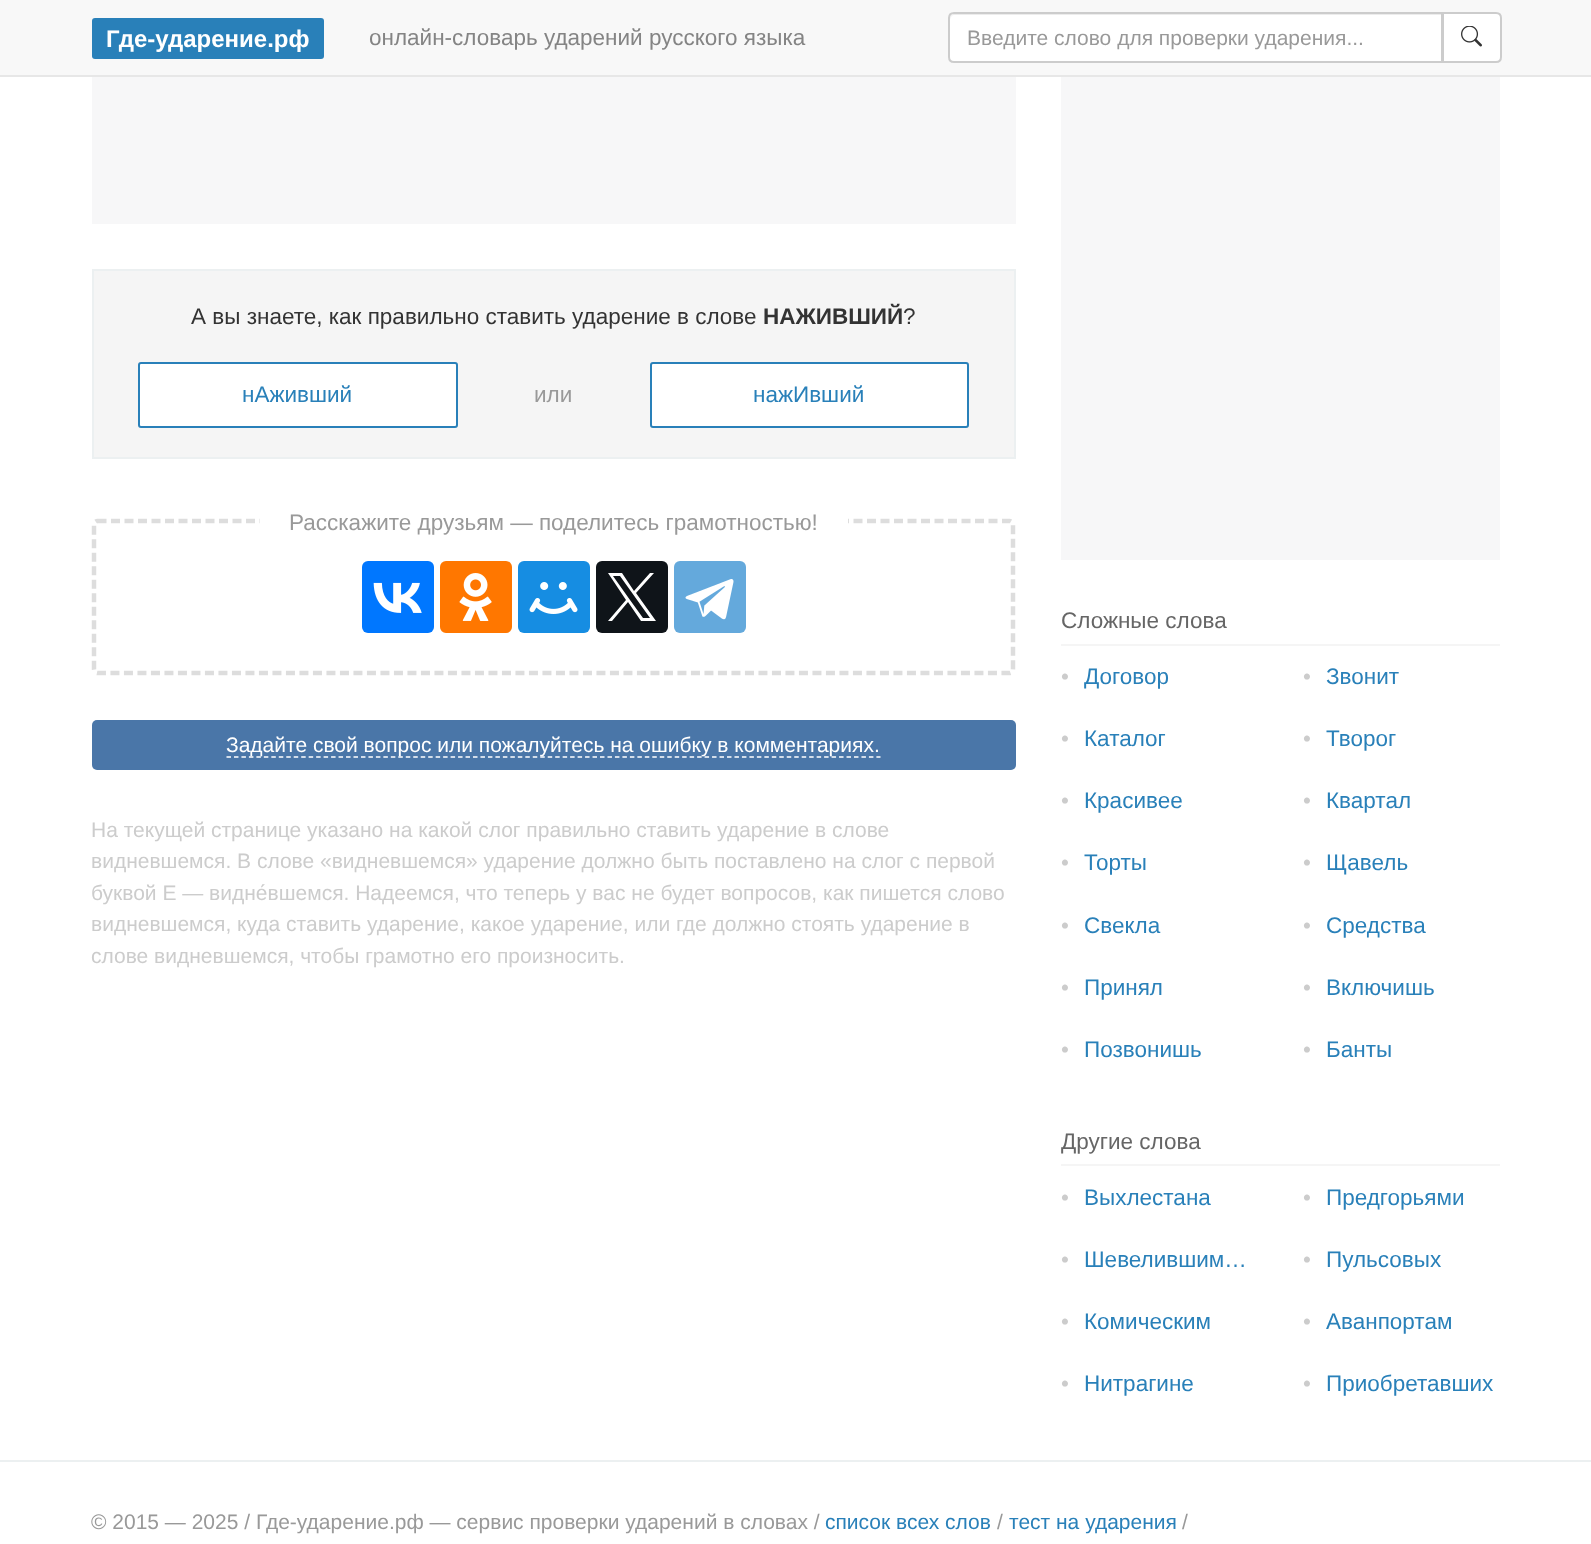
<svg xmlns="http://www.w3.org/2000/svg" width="1591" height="1544">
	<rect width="100%" height="100%" fill="#FFFFFF" />
	<rect x="0" y="0" width="1591" height="75" fill="#F8F8F8" />
	<rect x="0" y="75" width="1591" height="2" fill="#E7E7E7" />
	<rect x="92" y="18" width="232" height="41" rx="3" fill="#2980B9" />
	<text x="106" y="47" font-family="Liberation Sans" font-size="24" font-weight="700" fill="#FFFFFF">Где-ударение.рф</text>
	<text x="369" y="45" font-family="Liberation Sans" font-size="22.5" fill="#848484">онлайн-словарь ударений русского языка</text>
	<path d="M954 12H1443V63H954C950.5 63 948 60.5 948 57V18C948 14.5 950.5 12 954 12Z" fill="#FFFFFF" />
	<path d="M954 15H1442V14H955C952 14 950 16 950 19V20C950 17 952 15 954 15Z" fill="#ECECEC" />
	<path d="M954 13H1442V62H954C951 62 949 60 949 57V18C949 15 951 13 954 13Z" fill="none" stroke="#CCCCCC" stroke-width="2" />
	<text x="967" y="45" font-family="Liberation Sans" font-size="21" fill="#999999">Введите слово для проверки ударения...</text>
	<path d="M1443 13H1496C1499 13 1501 15 1501 18V57C1501 60 1499 62 1496 62H1443Z" fill="#FFFFFF" stroke="#CCCCCC" stroke-width="2" />
	<image x="1461" y="26" width="21" height="21" href="assets/img1.png" />
	<rect x="92" y="77" width="924" height="147" fill="#F7F7F8" />
	<rect x="93" y="270" width="922" height="188" fill="#F5F5F5" stroke="#ECF0F1" stroke-width="2" />
	<text x="191" y="324" font-family="Liberation Sans" font-size="22.5" fill="#333333">А вы знаете, как правильно ставить ударение в слове</text>
	<text x="763" y="324" font-family="Liberation Sans" font-size="22.5" font-weight="700" fill="#333333">НАЖИВШИЙ</text>
	<text x="903" y="324" font-family="Liberation Sans" font-size="22.5" fill="#333333">?</text>
	<rect x="139" y="363" width="318" height="64" rx="2" fill="#FFFFFF" stroke="#2980B9" stroke-width="2" />
	<text x="242" y="402" font-family="Liberation Sans" font-size="22.5" fill="#2980B9">нАживший</text>
	<text x="534" y="402" font-family="Liberation Sans" font-size="22.5" fill="#999999">или</text>
	<rect x="651" y="363" width="317" height="64" rx="2" fill="#FFFFFF" stroke="#2980B9" stroke-width="2" />
	<text x="753" y="402" font-family="Liberation Sans" font-size="22.5" fill="#2980B9">нажИвший</text>
	<path d="M97.5 521H1009.5C1011.5 521 1013 523 1013 525V669C1013 671 1011.5 673 1009.5 673H97.5C95.5 673 94 671 94 669V525C94 523 95.5 521 97.5 521Z" fill="none" stroke="#DDDDDD" stroke-width="4.5" stroke-dasharray="9 4.5" />
	<rect x="260" y="518" width="588" height="6" fill="#FFFFFF" />
	<text x="289" y="530" font-family="Liberation Sans" font-size="22.5" fill="#999999">Расскажите друзьям — поделитесь грамотностью!</text>
	<rect x="362" y="561" width="72" height="72" rx="6" fill="#0077FF" />
	<image x="373" y="582" width="49" height="31" href="assets/img2.png" />
	<rect x="440" y="561" width="72" height="72" rx="6" fill="#FF7700" />
	<image x="459" y="573" width="33" height="48" href="assets/img3.png" />
	<rect x="518" y="561" width="72" height="72" rx="6" fill="#168DE2" />
	<image x="529" y="582" width="49" height="32" href="assets/img4.png" />
	<rect x="596" y="561" width="72" height="72" rx="6" fill="#0F1419" />
	<path d="M636 593L654 573H650L634 591L622 573H608L626 600L608 621H612L628 602L641 621H656ZM630 600L613 576H620L650 618H643Z" fill="#FFFFFF" />
	<rect x="674" y="561" width="72" height="72" rx="6" fill="#64A9DC" />
	<image x="685" y="579" width="49" height="41" href="assets/img5.png" />
	<rect x="92" y="720" width="924" height="50" rx="5" fill="#4A76A8" />
	<path d="M226.5 757H880.5" fill="none" stroke="#FFFFFF" stroke-width="1.5" stroke-dasharray="4.5 2.97" />
	<text x="226" y="752" font-family="Liberation Sans" font-size="21" fill="#FFFFFF">Задайте свой вопрос или пожалуйтесь на ошибку в комментариях.</text>
	<g font-family="Liberation Sans" font-size="21" fill="#CCCCCC">
		<text x="91" y="837">На текущей странице указано на какой слог правильно ставить ударение в слове</text>
		<text x="91" y="868">видневшемся. В слове «видневшемся» ударение должно быть поставлено на слог с первой</text>
		<text x="91" y="900">буквой Е — видне́вшемся. Надеемся, что теперь у вас не будет вопросов, как пишется слово</text>
		<text x="91" y="931">видневшемся, куда ставить ударение, какое ударение, или где должно стоять ударение в</text>
		<text x="91" y="963">слове видневшемся, чтобы грамотно его произносить.</text>
	</g>
	<rect x="1061" y="77" width="439" height="483" fill="#F7F7F8" />
	<rect x="1061" y="644" width="439" height="2" fill="#F5F5F5" />
	<text x="1061" y="628" font-family="Liberation Sans" font-size="22.5" fill="#666666">Сложные слова</text>
	<text x="1061" y="684" font-family="Liberation Sans" font-size="22.5" fill="#CCCCCC">•</text>
	<text x="1084" y="684" font-family="Liberation Sans" font-size="22.5" fill="#2980B9">Договор</text>
	<text x="1303" y="684" font-family="Liberation Sans" font-size="22.5" fill="#CCCCCC">•</text>
	<text x="1326" y="684" font-family="Liberation Sans" font-size="22.5" fill="#2980B9">Звонит</text>
	<text x="1061" y="746" font-family="Liberation Sans" font-size="22.5" fill="#CCCCCC">•</text>
	<text x="1084" y="746" font-family="Liberation Sans" font-size="22.5" fill="#2980B9">Каталог</text>
	<text x="1303" y="746" font-family="Liberation Sans" font-size="22.5" fill="#CCCCCC">•</text>
	<text x="1326" y="746" font-family="Liberation Sans" font-size="22.5" fill="#2980B9">Творог</text>
	<text x="1061" y="808" font-family="Liberation Sans" font-size="22.5" fill="#CCCCCC">•</text>
	<text x="1084" y="808" font-family="Liberation Sans" font-size="22.5" fill="#2980B9">Красивее</text>
	<text x="1303" y="808" font-family="Liberation Sans" font-size="22.5" fill="#CCCCCC">•</text>
	<text x="1326" y="808" font-family="Liberation Sans" font-size="22.5" fill="#2980B9">Квартал</text>
	<text x="1061" y="870" font-family="Liberation Sans" font-size="22.5" fill="#CCCCCC">•</text>
	<text x="1084" y="870" font-family="Liberation Sans" font-size="22.5" fill="#2980B9">Торты</text>
	<text x="1303" y="870" font-family="Liberation Sans" font-size="22.5" fill="#CCCCCC">•</text>
	<text x="1326" y="870" font-family="Liberation Sans" font-size="22.5" fill="#2980B9">Щавель</text>
	<text x="1061" y="933" font-family="Liberation Sans" font-size="22.5" fill="#CCCCCC">•</text>
	<text x="1084" y="933" font-family="Liberation Sans" font-size="22.5" fill="#2980B9">Свекла</text>
	<text x="1303" y="933" font-family="Liberation Sans" font-size="22.5" fill="#CCCCCC">•</text>
	<text x="1326" y="933" font-family="Liberation Sans" font-size="22.5" fill="#2980B9">Средства</text>
	<text x="1061" y="995" font-family="Liberation Sans" font-size="22.5" fill="#CCCCCC">•</text>
	<text x="1084" y="995" font-family="Liberation Sans" font-size="22.5" fill="#2980B9">Принял</text>
	<text x="1303" y="995" font-family="Liberation Sans" font-size="22.5" fill="#CCCCCC">•</text>
	<text x="1326" y="995" font-family="Liberation Sans" font-size="22.5" fill="#2980B9">Включишь</text>
	<text x="1061" y="1057" font-family="Liberation Sans" font-size="22.5" fill="#CCCCCC">•</text>
	<text x="1084" y="1057" font-family="Liberation Sans" font-size="22.5" fill="#2980B9">Позвонишь</text>
	<text x="1303" y="1057" font-family="Liberation Sans" font-size="22.5" fill="#CCCCCC">•</text>
	<text x="1326" y="1057" font-family="Liberation Sans" font-size="22.5" fill="#2980B9">Банты</text>
	<rect x="1061" y="1164" width="439" height="2" fill="#F5F5F5" />
	<text x="1061" y="1149" font-family="Liberation Sans" font-size="22.5" fill="#666666">Другие слова</text>
	<text x="1061" y="1205" font-family="Liberation Sans" font-size="22.5" fill="#CCCCCC">•</text>
	<text x="1084" y="1205" font-family="Liberation Sans" font-size="22.5" fill="#2980B9">Выхлестана</text>
	<text x="1303" y="1205" font-family="Liberation Sans" font-size="22.5" fill="#CCCCCC">•</text>
	<text x="1326" y="1205" font-family="Liberation Sans" font-size="22.5" fill="#2980B9">Предгорьями</text>
	<text x="1061" y="1267" font-family="Liberation Sans" font-size="22.5" fill="#CCCCCC">•</text>
	<text x="1084" y="1267" font-family="Liberation Sans" font-size="22.5" fill="#2980B9">Шевелившим…</text>
	<text x="1303" y="1267" font-family="Liberation Sans" font-size="22.5" fill="#CCCCCC">•</text>
	<text x="1326" y="1267" font-family="Liberation Sans" font-size="22.5" fill="#2980B9">Пульсовых</text>
	<text x="1061" y="1329" font-family="Liberation Sans" font-size="22.5" fill="#CCCCCC">•</text>
	<text x="1084" y="1329" font-family="Liberation Sans" font-size="22.5" fill="#2980B9">Комическим</text>
	<text x="1303" y="1329" font-family="Liberation Sans" font-size="22.5" fill="#CCCCCC">•</text>
	<text x="1326" y="1329" font-family="Liberation Sans" font-size="22.5" fill="#2980B9">Аванпортам</text>
	<text x="1061" y="1391" font-family="Liberation Sans" font-size="22.5" fill="#CCCCCC">•</text>
	<text x="1084" y="1391" font-family="Liberation Sans" font-size="22.5" fill="#2980B9">Нитрагине</text>
	<text x="1303" y="1391" font-family="Liberation Sans" font-size="22.5" fill="#CCCCCC">•</text>
	<text x="1326" y="1391" font-family="Liberation Sans" font-size="22.5" fill="#2980B9">Приобретавших</text>
	<rect x="0" y="1460" width="1591" height="2" fill="#ECF0F1" />
	<text x="91" y="1529" font-family="Liberation Sans" font-size="21" fill="#999999">© 2015 — 2025 / Где-ударение.рф — сервис проверки ударений в словах /</text>
	<text x="825" y="1529" font-family="Liberation Sans" font-size="21" fill="#2980B9">список всех слов</text>
	<text x="997" y="1529" font-family="Liberation Sans" font-size="21" fill="#999999">/</text>
	<text x="1009" y="1529" font-family="Liberation Sans" font-size="21" fill="#2980B9">тест на ударения</text>
	<text x="1182" y="1529" font-family="Liberation Sans" font-size="21" fill="#999999">/</text>
</svg>
